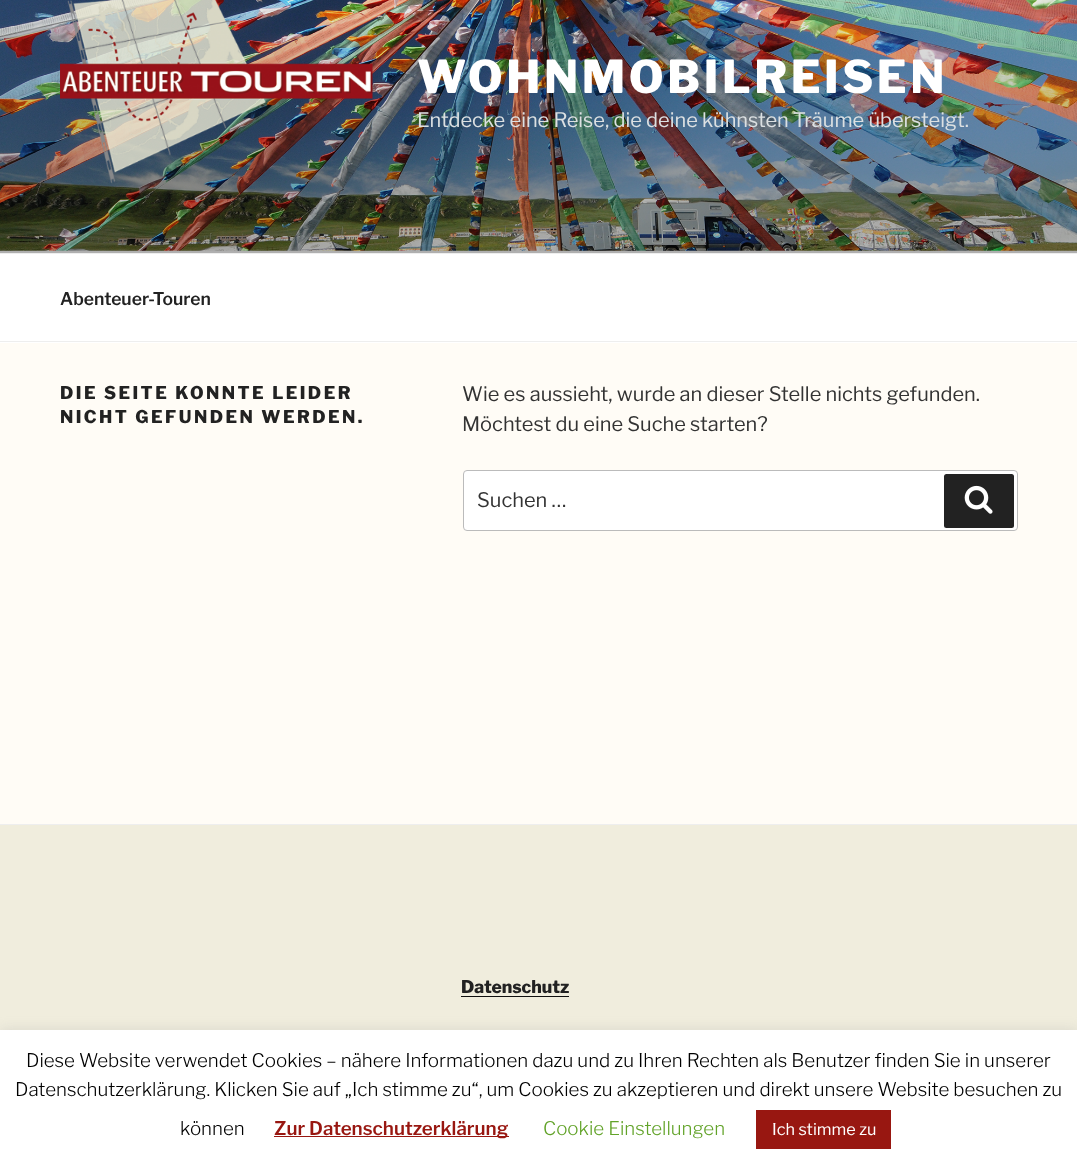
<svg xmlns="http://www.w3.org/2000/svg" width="1077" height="1169">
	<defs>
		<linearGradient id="g1" gradientUnits="userSpaceOnUse" x1="539" y1="-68" x2="539" y2="253"><stop offset="0" stop-color="#000000" stop-opacity="0" /><stop offset="0.75" stop-color="#000000" stop-opacity="0.3" /><stop offset="1" stop-color="#000000" stop-opacity="0.3" /></linearGradient>
	</defs>
	<rect width="100%" height="100%" fill="#FAFAFA" />
	<image x="0" y="0" width="1077" height="251" href="assets/img1.png" />
	<rect x="0" y="0" width="1077" height="253" fill="url(#g1)" />
	<image x="60" y="0" width="313" height="184" href="assets/img2.png" />
	<text x="417" y="93" font-family="Libre Franklin" font-size="45" font-weight="100" letter-spacing="3.6" fill="#FFFFFF">WOHNMOBILREISEN</text>
	<text x="417" y="127" font-family="'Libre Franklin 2'" font-size="20" font-weight="100" fill="#DCE0E2">Entdecke eine Reise, die deine kühnsten Träume übersteigt.</text>
	<rect x="0" y="254" width="1077" height="89" fill="#FFFFFF" />
	<rect x="0" y="253" width="1077" height="1" fill="#EEEEEE" />
	<rect x="0" y="341" width="1077" height="1" fill="#EEEEEE" />
	<text x="60" y="305" font-family="'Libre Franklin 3'" font-size="17.5" font-weight="100" fill="#222222">Abenteuer-Touren</text>
	<rect x="0" y="343" width="1077" height="481" fill="#FFFCF6" />
	<g font-family="Libre Franklin" font-size="17.5" font-weight="100" letter-spacing="2.45" fill="#222222">
		<text x="60" y="399">DIE SEITE KONNTE LEIDER</text>
		<text x="60" y="423">NICHT GEFUNDEN WERDEN.</text>
	</g>
	<g font-family="'Libre Franklin 2'" font-size="20" font-weight="100" fill="#333333">
		<text x="462" y="401">Wie es aussieht, wurde an dieser Stelle nichts gefunden.</text>
		<text x="462" y="431">Möchtest du eine Suche starten?</text>
	</g>
	<rect x="463.5" y="470.5" width="554" height="60" rx="3.5" fill="#FFFFFF" stroke="#BBBBBB" />
	<text x="477" y="507" font-family="'Libre Franklin 2'" font-size="20" font-weight="100" fill="#333333">Suchen …</text>
	<rect x="944" y="474" width="70" height="54" rx="2.5" fill="#222222" />
	<image x="964" y="485" width="29" height="29" href="assets/img3.png" />
	<rect x="0" y="825" width="1077" height="205" fill="#F0EDDD" />
	<rect x="0" y="824" width="1077" height="1" fill="#EEEEEE" />
	<text x="461" y="993" font-family="Libre Franklin" font-size="17.5" font-weight="100" fill="#222222">Datenschutz</text>
	<rect x="461" y="996" width="108" height="1" fill="#0F0F0F" />
	<rect x="0" y="1029" width="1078" height="140" fill="#ACABAB" fill-opacity="0.3" filter="blur(6px)" />
	<rect x="0" y="1030" width="1077" height="139" fill="#FFFFFF" />
	<g font-family="'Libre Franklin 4'" font-size="18.75" font-weight="100" fill="#000000">
		<text x="26" y="1067">Diese Website verwendet Cookies – nähere Informationen dazu und zu Ihren Rechten als Benutzer finden Sie in unserer</text>
		<text x="15" y="1096">Datenschutzerklärung. Klicken Sie auf „Ich stimme zu“, um Cookies zu akzeptieren und direkt unsere Website besuchen zu</text>
		<text x="180" y="1135">können</text>
	</g>
	<rect x="274" y="1136" width="235" height="1" fill="#981711" />
	<text x="274" y="1135" font-family="'Libre Franklin 3'" font-size="18.75" font-weight="100" fill="#981711">Zur Datenschutzerklärung</text>
	<text x="543" y="1135" font-family="'Libre Franklin 4'" font-size="18.75" font-weight="100" fill="#62A329">Cookie Einstellungen</text>
	<rect x="756" y="1110" width="135" height="39" fill="#981711" />
	<text x="772" y="1135" font-family="'Libre Franklin 2'" font-size="16.25" font-weight="100" fill="#FFFFFF">Ich stimme zu</text>
</svg>
